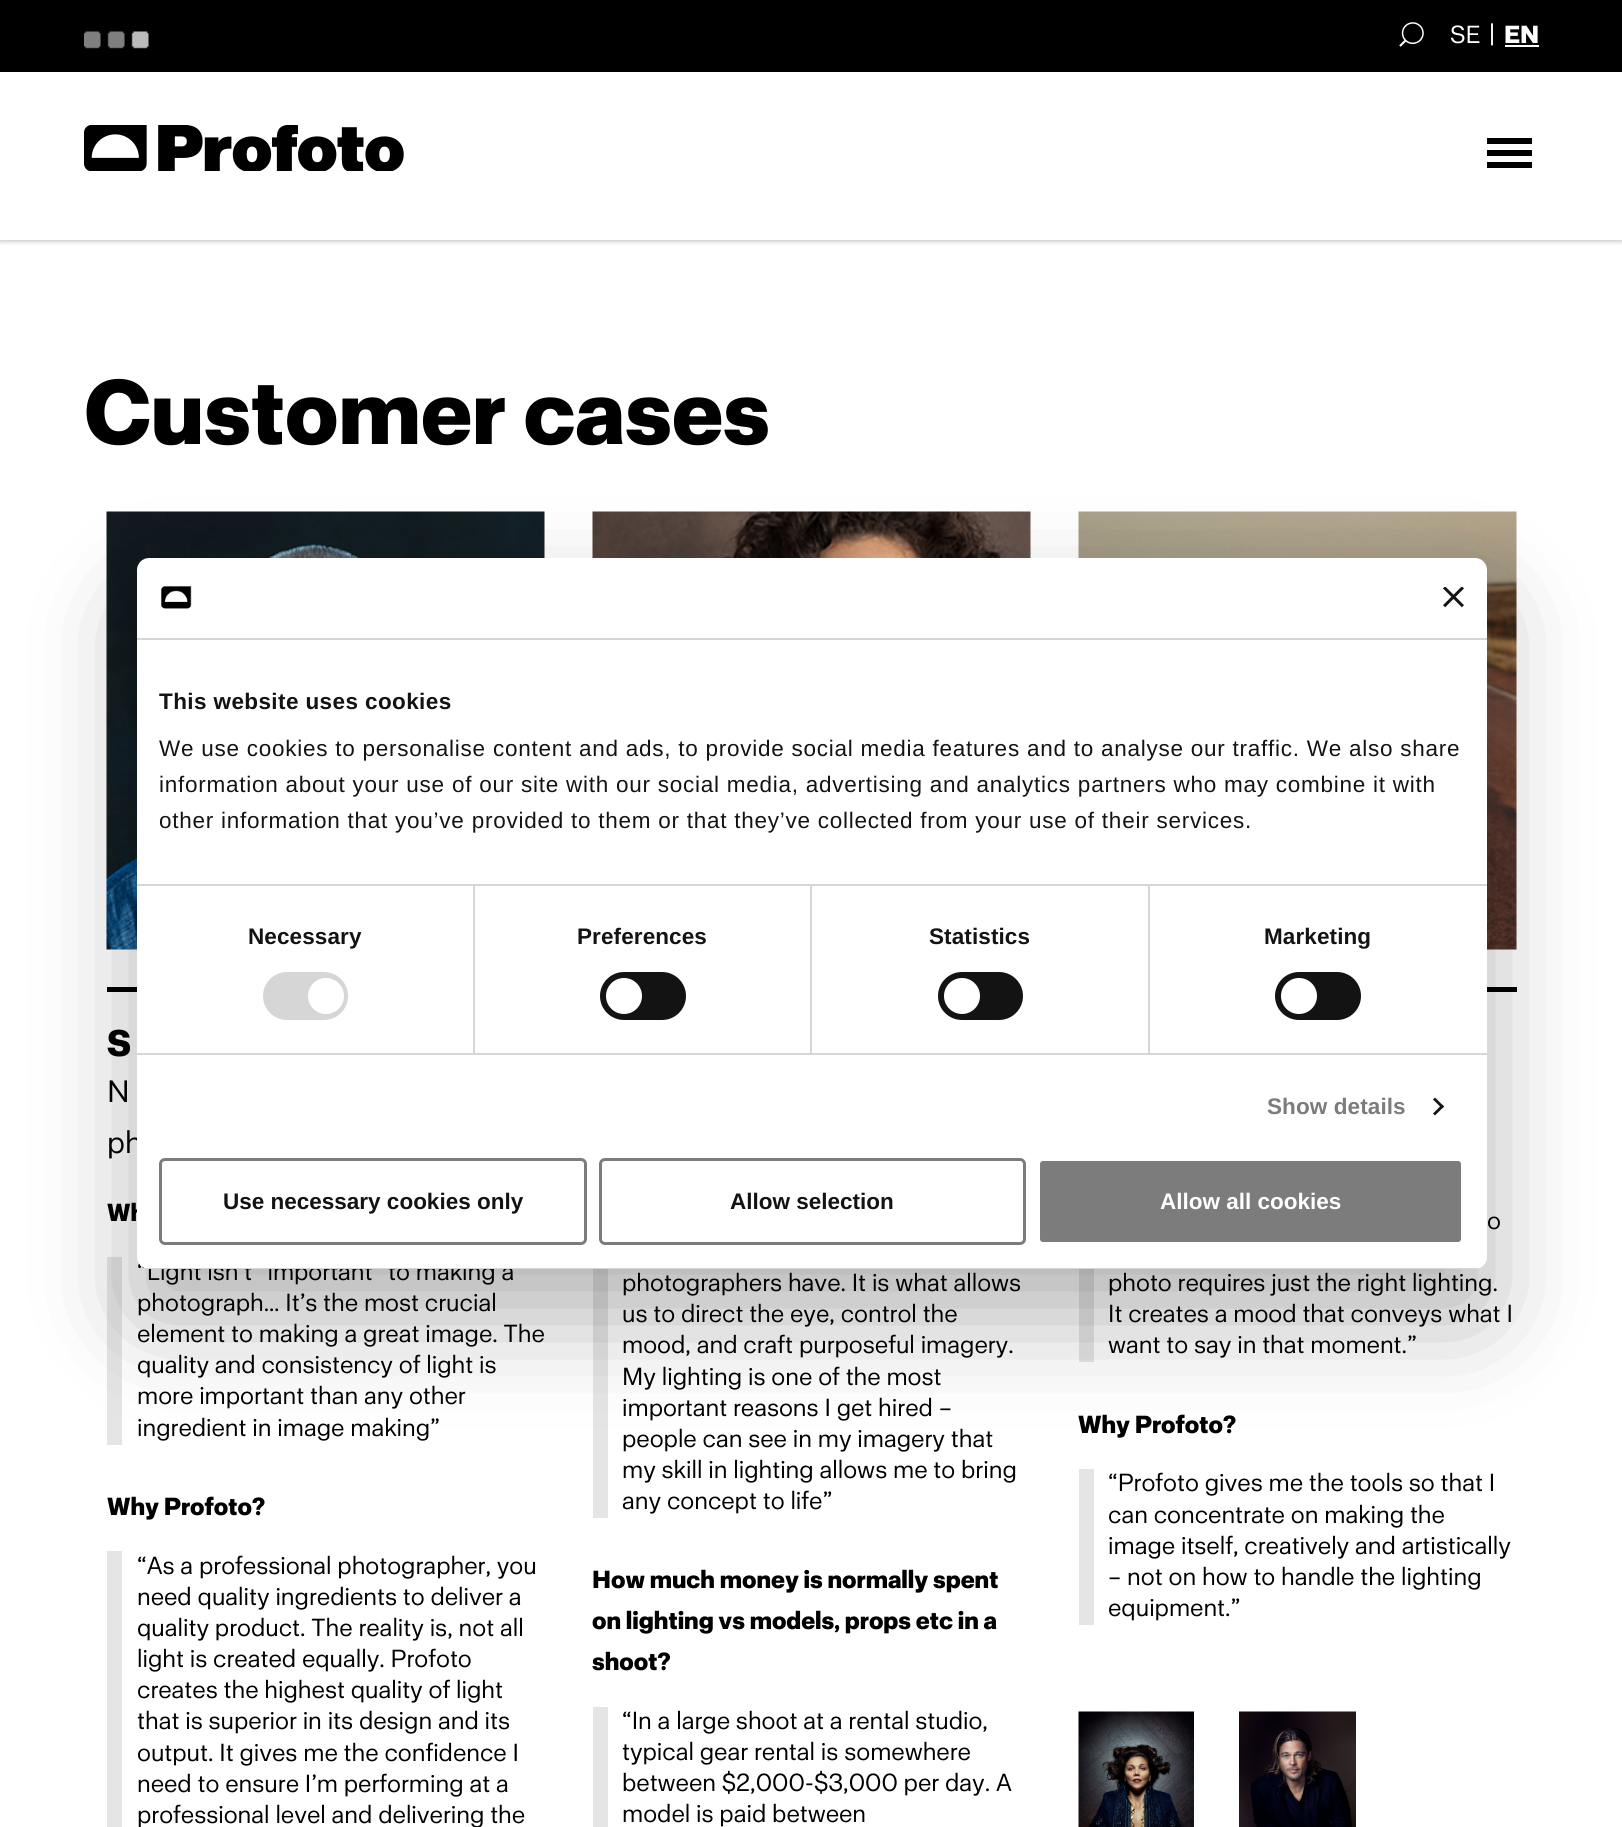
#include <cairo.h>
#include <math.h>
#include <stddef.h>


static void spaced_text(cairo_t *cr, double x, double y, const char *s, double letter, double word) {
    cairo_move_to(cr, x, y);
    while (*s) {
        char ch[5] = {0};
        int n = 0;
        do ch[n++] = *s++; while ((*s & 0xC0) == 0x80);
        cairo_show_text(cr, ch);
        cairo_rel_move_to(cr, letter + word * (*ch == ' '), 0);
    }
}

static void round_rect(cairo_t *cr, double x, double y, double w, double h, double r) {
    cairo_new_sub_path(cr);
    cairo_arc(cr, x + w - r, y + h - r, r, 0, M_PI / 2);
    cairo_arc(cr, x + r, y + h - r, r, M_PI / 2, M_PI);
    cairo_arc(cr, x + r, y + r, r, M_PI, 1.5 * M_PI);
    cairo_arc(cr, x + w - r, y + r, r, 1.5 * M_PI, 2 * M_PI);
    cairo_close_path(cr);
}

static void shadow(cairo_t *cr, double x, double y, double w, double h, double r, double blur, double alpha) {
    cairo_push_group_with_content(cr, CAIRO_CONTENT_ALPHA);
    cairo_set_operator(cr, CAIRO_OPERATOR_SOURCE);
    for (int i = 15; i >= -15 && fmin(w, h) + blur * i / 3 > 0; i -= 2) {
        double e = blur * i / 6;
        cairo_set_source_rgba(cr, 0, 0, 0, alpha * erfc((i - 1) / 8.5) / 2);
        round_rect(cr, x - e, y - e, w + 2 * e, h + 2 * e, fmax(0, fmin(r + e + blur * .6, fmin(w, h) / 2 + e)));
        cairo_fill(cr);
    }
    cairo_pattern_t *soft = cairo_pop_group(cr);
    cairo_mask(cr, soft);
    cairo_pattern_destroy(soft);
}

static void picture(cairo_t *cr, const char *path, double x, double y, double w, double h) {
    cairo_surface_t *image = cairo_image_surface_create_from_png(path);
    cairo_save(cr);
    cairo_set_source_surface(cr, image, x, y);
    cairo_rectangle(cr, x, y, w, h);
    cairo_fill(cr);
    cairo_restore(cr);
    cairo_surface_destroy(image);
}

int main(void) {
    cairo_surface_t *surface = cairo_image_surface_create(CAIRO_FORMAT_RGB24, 1622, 1827);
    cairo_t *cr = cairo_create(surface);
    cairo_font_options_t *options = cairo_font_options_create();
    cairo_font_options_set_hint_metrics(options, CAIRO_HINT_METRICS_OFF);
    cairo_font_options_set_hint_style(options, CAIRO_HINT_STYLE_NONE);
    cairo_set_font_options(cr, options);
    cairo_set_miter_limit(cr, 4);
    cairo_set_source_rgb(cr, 1, 1, 1);
    cairo_paint(cr);
    cairo_save(cr);
    cairo_rectangle(cr, 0, 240, 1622, 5);
    cairo_clip(cr);
    cairo_set_source_rgb(cr, 0, 0, 0);
    shadow(cr, 0, -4, 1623, 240, 0, 4.5, 1);
    cairo_restore(cr);
    cairo_set_source_rgb(cr, 0, 0, 0);
    cairo_rectangle(cr, 0, 0, 1622, 72);
    cairo_fill(cr);
    picture(cr, "img1.png", 84, 31, 65, 18);
    picture(cr, "img2.png", 1399, 22, 25, 25);
    cairo_select_font_face(cr, "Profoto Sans", CAIRO_FONT_SLANT_NORMAL, CAIRO_FONT_WEIGHT_NORMAL);
    cairo_set_font_size(cr, 24);
    cairo_set_source_rgb(cr, 1, 1, 1);
    cairo_move_to(cr, 1450, 43);
    cairo_show_text(cr, "SE");
    cairo_move_to(cr, 1489, 43);
    cairo_show_text(cr, "|");
    cairo_select_font_face(cr, "Profoto Sans", CAIRO_FONT_SLANT_NORMAL, CAIRO_FONT_WEIGHT_BOLD);
    cairo_move_to(cr, 1504, 43);
    cairo_show_text(cr, "EN");
    cairo_rectangle(cr, 1505, 45, 34, 2);
    cairo_fill(cr);
    picture(cr, "img3.png", 84, 125, 320, 46);
    cairo_set_source_rgb(cr, 0, 0, 0);
    cairo_rectangle(cr, 1487, 150, 45, 6);
    cairo_fill(cr);
    cairo_rectangle(cr, 1487, 138, 45, 6);
    cairo_fill(cr);
    cairo_rectangle(cr, 1487, 162, 45, 6);
    cairo_fill(cr);
    cairo_set_font_size(cr, 88.75);
    cairo_move_to(cr, 84, 444);
    cairo_show_text(cr, "Customer cases");
    cairo_rectangle(cr, 107, 987, 30, 5);
    cairo_fill(cr);
    picture(cr, "img4.png", 106, 511, 439, 439);
    cairo_set_font_size(cr, 36);
    cairo_move_to(cr, 107, 1056);
    cairo_show_text(cr, "S");
    cairo_select_font_face(cr, "Profoto Sans", CAIRO_FONT_SLANT_NORMAL, CAIRO_FONT_WEIGHT_NORMAL);
    cairo_set_font_size(cr, 30);
    cairo_move_to(cr, 107, 1102);
    cairo_show_text(cr, "N");
    cairo_move_to(cr, 107, 1153);
    cairo_show_text(cr, "ph");
    cairo_select_font_face(cr, "Profoto Sans", CAIRO_FONT_SLANT_NORMAL, CAIRO_FONT_WEIGHT_BOLD);
    cairo_set_font_size(cr, 24);
    cairo_move_to(cr, 107, 1221);
    cairo_show_text(cr, "Wh");
    cairo_set_source_rgb(cr, 0.898, 0.898, 0.898);
    cairo_rectangle(cr, 107, 1257, 15, 188);
    cairo_fill(cr);
    cairo_select_font_face(cr, "Profoto Sans", CAIRO_FONT_SLANT_NORMAL, CAIRO_FONT_WEIGHT_NORMAL);
    cairo_set_source_rgb(cr, 0, 0, 0);
    cairo_move_to(cr, 137, 1280);
    cairo_show_text(cr, "“Light isn’t “important” to making a");
    cairo_move_to(cr, 137, 1311);
    cairo_show_text(cr, "photograph… It’s the most crucial");
    cairo_move_to(cr, 137, 1342);
    cairo_show_text(cr, "element to making a great image. The");
    cairo_move_to(cr, 137, 1373);
    cairo_show_text(cr, "quality and consistency of light is");
    cairo_move_to(cr, 137, 1404);
    cairo_show_text(cr, "more important than any other");
    cairo_move_to(cr, 137, 1436);
    cairo_show_text(cr, "ingredient in image making”");
    cairo_select_font_face(cr, "Profoto Sans", CAIRO_FONT_SLANT_NORMAL, CAIRO_FONT_WEIGHT_BOLD);
    cairo_move_to(cr, 107, 1515);
    cairo_show_text(cr, "Why Profoto?");
    cairo_set_source_rgb(cr, 0.898, 0.898, 0.898);
    cairo_rectangle(cr, 107, 1551, 15, 276);
    cairo_fill(cr);
    cairo_select_font_face(cr, "Profoto Sans", CAIRO_FONT_SLANT_NORMAL, CAIRO_FONT_WEIGHT_NORMAL);
    cairo_set_source_rgb(cr, 0, 0, 0);
    cairo_move_to(cr, 137, 1574);
    cairo_show_text(cr, "“As a professional photographer, you");
    cairo_move_to(cr, 137, 1605);
    cairo_show_text(cr, "need quality ingredients to deliver a");
    cairo_move_to(cr, 137, 1636);
    cairo_show_text(cr, "quality product. The reality is, not all");
    cairo_move_to(cr, 137, 1667);
    cairo_show_text(cr, "light is created equally. Profoto");
    cairo_move_to(cr, 137, 1698);
    cairo_show_text(cr, "creates the highest quality of light");
    cairo_move_to(cr, 137, 1729);
    cairo_show_text(cr, "that is superior in its design and its");
    cairo_move_to(cr, 137, 1761);
    cairo_show_text(cr, "output. It gives me the confidence I");
    cairo_move_to(cr, 137, 1792);
    cairo_show_text(cr, "need to ensure I’m performing at a");
    cairo_move_to(cr, 137, 1823);
    cairo_show_text(cr, "professional level and delivering the");
    picture(cr, "img5.png", 592, 511, 439, 47);
    cairo_set_source_rgb(cr, 0.898, 0.898, 0.898);
    cairo_rectangle(cr, 593, 1269, 15, 249);
    cairo_fill(cr);
    cairo_set_source_rgb(cr, 0, 0, 0);
    cairo_move_to(cr, 622, 1291);
    cairo_show_text(cr, "photographers have. It is what allows");
    cairo_move_to(cr, 622, 1322);
    cairo_show_text(cr, "us to direct the eye, control the");
    cairo_move_to(cr, 622, 1353);
    cairo_show_text(cr, "mood, and craft purposeful imagery.");
    cairo_move_to(cr, 622, 1385);
    cairo_show_text(cr, "My lighting is one of the most");
    cairo_move_to(cr, 622, 1416);
    cairo_show_text(cr, "important reasons I get hired –");
    cairo_move_to(cr, 622, 1447);
    cairo_show_text(cr, "people can see in my imagery that");
    cairo_move_to(cr, 622, 1478);
    cairo_show_text(cr, "my skill in lighting allows me to bring");
    cairo_move_to(cr, 622, 1509);
    cairo_show_text(cr, "any concept to life”");
    cairo_select_font_face(cr, "Profoto Sans", CAIRO_FONT_SLANT_NORMAL, CAIRO_FONT_WEIGHT_BOLD);
    cairo_move_to(cr, 592, 1588);
    cairo_show_text(cr, "How much money is normally spent");
    cairo_move_to(cr, 592, 1629);
    cairo_show_text(cr, "on lighting vs models, props etc in a");
    cairo_move_to(cr, 592, 1670);
    cairo_show_text(cr, "shoot?");
    cairo_set_source_rgb(cr, 0.898, 0.898, 0.898);
    cairo_rectangle(cr, 593, 1707, 15, 120);
    cairo_fill(cr);
    cairo_select_font_face(cr, "Profoto Sans", CAIRO_FONT_SLANT_NORMAL, CAIRO_FONT_WEIGHT_NORMAL);
    cairo_set_source_rgb(cr, 0, 0, 0);
    cairo_move_to(cr, 622, 1729);
    cairo_show_text(cr, "“In a large shoot at a rental studio,");
    cairo_move_to(cr, 622, 1760);
    cairo_show_text(cr, "typical gear rental is somewhere");
    cairo_move_to(cr, 622, 1791);
    cairo_show_text(cr, "between $2,000-$3,000 per day. A");
    cairo_move_to(cr, 622, 1822);
    cairo_show_text(cr, "model is paid between");
    cairo_rectangle(cr, 1487, 987, 30, 5);
    cairo_fill(cr);
    picture(cr, "img6.png", 1078, 511, 439, 439);
    cairo_set_source_rgb(cr, 0.898, 0.898, 0.898);
    cairo_rectangle(cr, 1079, 1269, 15, 93);
    cairo_fill(cr);
    cairo_set_source_rgb(cr, 0, 0, 0);
    cairo_move_to(cr, 1487, 1229);
    cairo_show_text(cr, "o");
    cairo_move_to(cr, 1108, 1291);
    cairo_show_text(cr, "photo requires just the right lighting.");
    cairo_move_to(cr, 1108, 1322);
    cairo_show_text(cr, "It creates a mood that conveys what I");
    cairo_move_to(cr, 1108, 1353);
    cairo_show_text(cr, "want to say in that moment.”");
    cairo_select_font_face(cr, "Profoto Sans", CAIRO_FONT_SLANT_NORMAL, CAIRO_FONT_WEIGHT_BOLD);
    cairo_move_to(cr, 1078, 1433);
    cairo_show_text(cr, "Why Profoto?");
    cairo_set_source_rgb(cr, 0.898, 0.898, 0.898);
    cairo_rectangle(cr, 1079, 1469, 15, 156);
    cairo_fill(cr);
    cairo_select_font_face(cr, "Profoto Sans", CAIRO_FONT_SLANT_NORMAL, CAIRO_FONT_WEIGHT_NORMAL);
    cairo_set_source_rgb(cr, 0, 0, 0);
    cairo_move_to(cr, 1108, 1491);
    cairo_show_text(cr, "“Profoto gives me the tools so that I");
    cairo_move_to(cr, 1108, 1523);
    cairo_show_text(cr, "can concentrate on making the");
    cairo_move_to(cr, 1108, 1554);
    cairo_show_text(cr, "image itself, creatively and artistically");
    cairo_move_to(cr, 1108, 1585);
    cairo_show_text(cr, "– not on how to handle the lighting");
    cairo_move_to(cr, 1108, 1616);
    cairo_show_text(cr, "equipment.”");
    picture(cr, "img7.png", 1078, 1711, 116, 116);
    picture(cr, "img8.png", 1239, 1711, 117, 116);
    cairo_set_source_rgb(cr, 0, 0, 0);
    shadow(cr, 137, 606, 1350, 711, 12, 51, 0.3);
    cairo_set_source_rgb(cr, 1, 1, 1);
    round_rect(cr, 137, 558, 1350, 711, 12);
    cairo_fill(cr);
    cairo_set_source_rgb(cr, 0.839, 0.839, 0.839);
    cairo_rectangle(cr, 137, 638, 1350, 2);
    cairo_fill(cr);
    picture(cr, "img9.png", 161, 586, 31, 23);
    picture(cr, "img10.png", 1443, 587, 21, 21);
    cairo_rectangle(cr, 473, 885, 2, 168);
    cairo_fill(cr);
    cairo_rectangle(cr, 810, 885, 2, 168);
    cairo_fill(cr);
    cairo_rectangle(cr, 1148, 885, 2, 168);
    cairo_fill(cr);
    cairo_rectangle(cr, 137, 884, 1350, 2);
    cairo_fill(cr);
    cairo_select_font_face(cr, "Liberation Sans", CAIRO_FONT_SLANT_NORMAL, CAIRO_FONT_WEIGHT_BOLD);
    cairo_set_font_size(cr, 22.5);
    cairo_set_source_rgb(cr, 0.078, 0.078, 0.078);
    spaced_text(cr, 159, 709, "This website uses cookies", 0.4, 0);
    cairo_select_font_face(cr, "Liberation Sans", CAIRO_FONT_SLANT_NORMAL, CAIRO_FONT_WEIGHT_NORMAL);
    spaced_text(cr, 159, 756, "We use cookies to personalise content and ads, to provide social media features and to analyse our traffic. We also share", 0.75, 0);
    spaced_text(cr, 159, 792, "information about your use of our site with our social media, advertising and analytics partners who may combine it with", 0.75, 0);
    spaced_text(cr, 159, 828, "other information that you’ve provided to them or that they’ve collected from your use of their services.", 0.75, 0);
    cairo_set_source_rgb(cr, 0.839, 0.839, 0.839);
    cairo_rectangle(cr, 137, 1053, 1350, 2);
    cairo_fill(cr);
    cairo_select_font_face(cr, "Liberation Sans", CAIRO_FONT_SLANT_NORMAL, CAIRO_FONT_WEIGHT_BOLD);
    cairo_set_source_rgb(cr, 0.078, 0.078, 0.078);
    spaced_text(cr, 248, 944, "Necessary", 0.1, 0);
    cairo_set_source_rgb(cr, 0.839, 0.839, 0.839);
    round_rect(cr, 263, 972, 85, 48, 24);
    cairo_fill(cr);
    cairo_set_source_rgb(cr, 1, 1, 1);
    cairo_arc(cr, 326, 996, 18, 0, 2 * M_PI);
    cairo_fill(cr);
    cairo_set_source_rgb(cr, 0.078, 0.078, 0.078);
    spaced_text(cr, 577, 944, "Preferences", 0.1, 0);
    round_rect(cr, 600, 972, 86, 48, 24);
    cairo_fill(cr);
    cairo_set_source_rgb(cr, 1, 1, 1);
    cairo_arc(cr, 624, 996, 18, 0, 2 * M_PI);
    cairo_fill(cr);
    cairo_set_source_rgb(cr, 0.078, 0.078, 0.078);
    spaced_text(cr, 929, 944, "Statistics", 0.1, 0);
    round_rect(cr, 938, 972, 85, 48, 24);
    cairo_fill(cr);
    cairo_set_source_rgb(cr, 1, 1, 1);
    cairo_arc(cr, 962, 996, 18, 0, 2 * M_PI);
    cairo_fill(cr);
    cairo_set_source_rgb(cr, 0.078, 0.078, 0.078);
    spaced_text(cr, 1264, 944, "Marketing", 0.1, 0);
    round_rect(cr, 1275, 972, 86, 48, 24);
    cairo_fill(cr);
    cairo_set_source_rgb(cr, 1, 1, 1);
    cairo_arc(cr, 1299, 996, 18, 0, 2 * M_PI);
    cairo_fill(cr);
    cairo_set_source_rgb(cr, 0.486, 0.486, 0.486);
    spaced_text(cr, 1267, 1114, "Show details", 0.1, 0);
    cairo_set_source_rgb(cr, 0.078, 0.078, 0.078);
    cairo_new_path(cr);
    cairo_move_to(cr, 1435, 1097.5);
    cairo_line_to(cr, 1444, 1106.5);
    cairo_line_to(cr, 1442, 1108.5);
    cairo_line_to(cr, 1433, 1099.5);
    cairo_close_path(cr);
    cairo_fill(cr);
    cairo_new_path(cr);
    cairo_move_to(cr, 1442, 1104.5);
    cairo_line_to(cr, 1444, 1106.5);
    cairo_line_to(cr, 1435, 1115.5);
    cairo_line_to(cr, 1433, 1113.5);
    cairo_close_path(cr);
    cairo_fill(cr);
    cairo_save(cr);
    round_rect(cr, 137, 558, 1350, 711, 12);
    cairo_clip(cr);
    cairo_set_source_rgb(cr, 0.839, 0.839, 0.839);
    cairo_rectangle(cr, 137, 1268, 1350, 1);
    cairo_fill(cr);
    cairo_restore(cr);
    round_rect(cr, 160.5, 1159.5, 425, 84, 4.5);
    cairo_set_source_rgb(cr, 0.486, 0.486, 0.486);
    cairo_set_line_width(cr, 3);
    cairo_stroke(cr);
    cairo_set_source_rgb(cr, 0.078, 0.078, 0.078);
    cairo_move_to(cr, 223, 1209);
    cairo_show_text(cr, "Use necessary cookies only");
    round_rect(cr, 600.5, 1159.5, 424, 84, 4.5);
    cairo_set_source_rgb(cr, 0.486, 0.486, 0.486);
    cairo_stroke(cr);
    cairo_set_source_rgb(cr, 0.078, 0.078, 0.078);
    cairo_move_to(cr, 730, 1209);
    cairo_show_text(cr, "Allow selection");
    cairo_set_source_rgb(cr, 0.486, 0.486, 0.486);
    round_rect(cr, 1038.5, 1159.5, 424, 84, 4.5);
    cairo_fill_preserve(cr);
    cairo_set_source_rgb(cr, 1, 1, 1);
    cairo_stroke(cr);
    cairo_move_to(cr, 1160, 1209);
    cairo_show_text(cr, "Allow all cookies");
    cairo_surface_write_to_png(surface, "page.png");
    cairo_font_options_destroy(options);
    cairo_destroy(cr);
    cairo_surface_destroy(surface);
    return 0;
}
